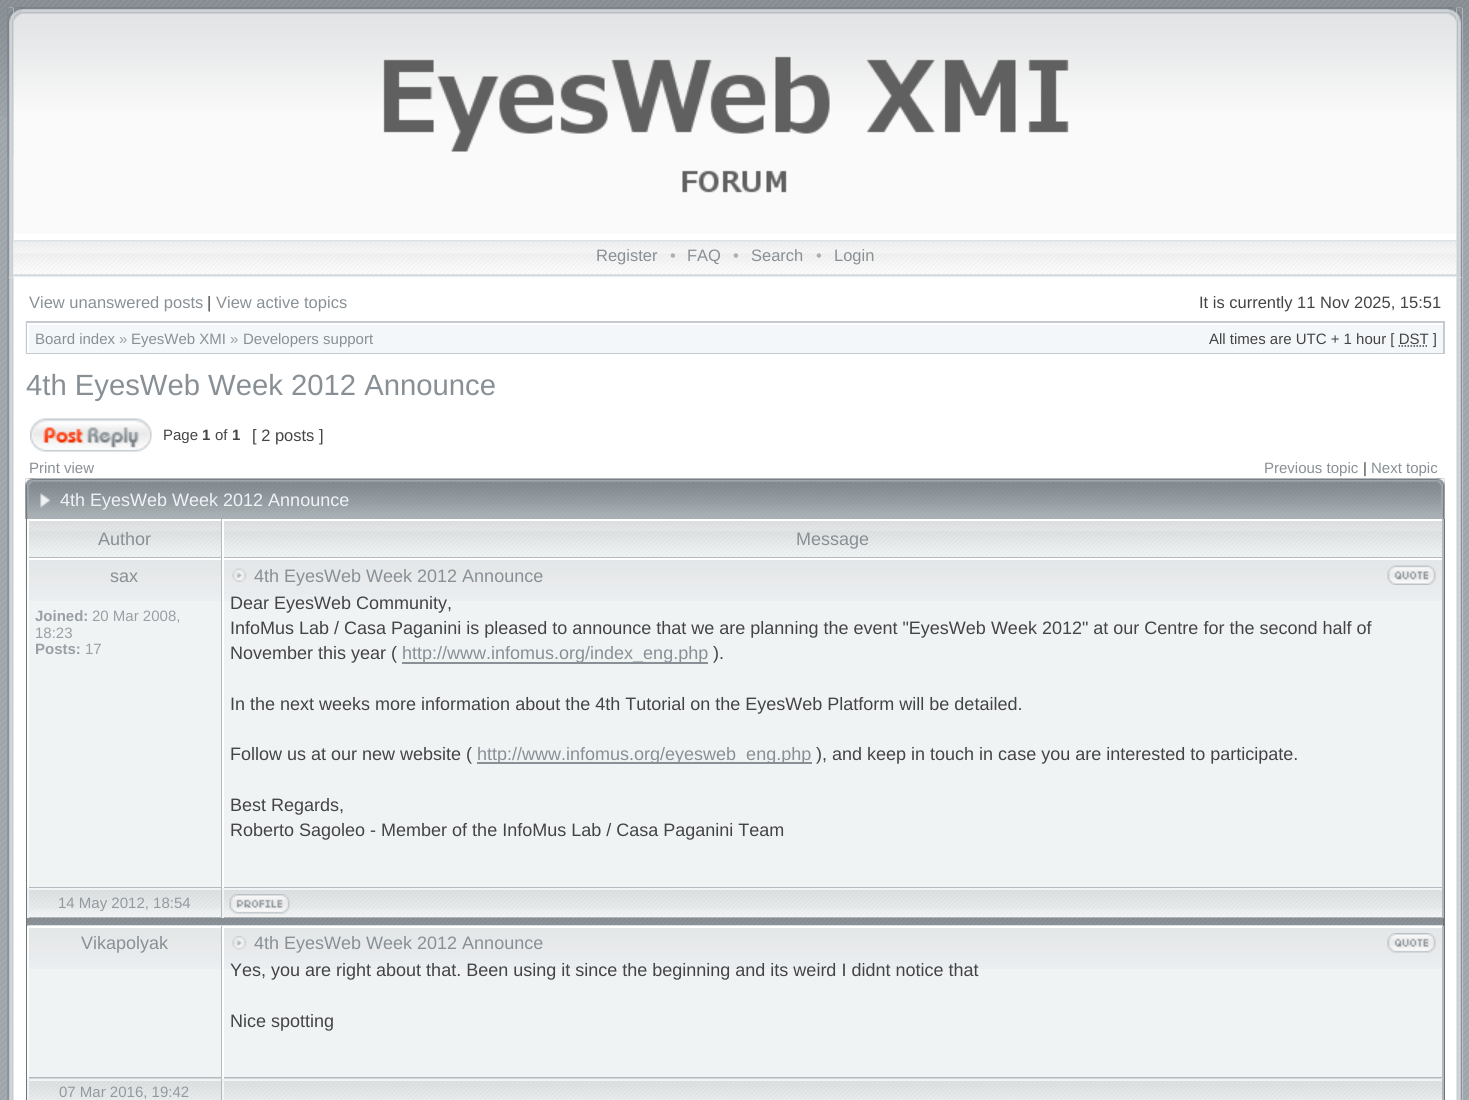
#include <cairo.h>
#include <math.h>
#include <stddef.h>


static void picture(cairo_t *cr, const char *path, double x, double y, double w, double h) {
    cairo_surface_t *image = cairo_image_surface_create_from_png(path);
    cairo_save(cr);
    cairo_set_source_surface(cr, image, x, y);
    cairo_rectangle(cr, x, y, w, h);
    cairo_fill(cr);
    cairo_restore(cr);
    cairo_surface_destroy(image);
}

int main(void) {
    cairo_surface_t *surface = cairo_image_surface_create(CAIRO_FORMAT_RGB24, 1469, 1100);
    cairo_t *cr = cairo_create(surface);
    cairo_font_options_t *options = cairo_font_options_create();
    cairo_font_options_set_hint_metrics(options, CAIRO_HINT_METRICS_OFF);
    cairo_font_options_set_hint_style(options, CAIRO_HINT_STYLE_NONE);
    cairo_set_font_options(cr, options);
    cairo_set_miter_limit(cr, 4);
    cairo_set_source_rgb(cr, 1, 1, 1);
    cairo_paint(cr);
    picture(cr, "img1.png", 0, 117, 1469, 983);
    picture(cr, "img2.png", 0, 0, 1469, 117);
    cairo_set_source_rgb(cr, 1, 1, 1);
    cairo_rectangle(cr, 8, 8, 1455, 1092);
    cairo_fill(cr);
    picture(cr, "img5.png", 13, 7, 1444, 227);
    picture(cr, "img6.png", 13, 7, 10, 15);
    picture(cr, "img3.png", 7, 7, 7, 271);
    picture(cr, "img4.png", 7, 7, 7, 150);
    picture(cr, "img7.png", 1447, 7, 10, 16);
    picture(cr, "img8.png", 383, 56, 686, 137);
    picture(cr, "img9.png", 13, 240, 1444, 38);
    cairo_select_font_face(cr, "Liberation Sans", CAIRO_FONT_SLANT_NORMAL, CAIRO_FONT_WEIGHT_NORMAL);
    cairo_set_font_size(cr, 16.5);
    cairo_set_source_rgb(cr, 0.533, 0.565, 0.584);
    cairo_move_to(cr, 596, 261);
    cairo_show_text(cr, "Register");
    cairo_set_source_rgb(cr, 0.659, 0.686, 0.702);
    cairo_move_to(cr, 670, 261);
    cairo_show_text(cr, "•");
    cairo_set_source_rgb(cr, 0.533, 0.565, 0.584);
    cairo_move_to(cr, 687, 261);
    cairo_show_text(cr, "FAQ");
    cairo_set_source_rgb(cr, 0.659, 0.686, 0.702);
    cairo_move_to(cr, 733, 261);
    cairo_show_text(cr, "•");
    cairo_set_source_rgb(cr, 0.533, 0.565, 0.584);
    cairo_move_to(cr, 751, 261);
    cairo_show_text(cr, "Search");
    cairo_set_source_rgb(cr, 0.659, 0.686, 0.702);
    cairo_move_to(cr, 816, 261);
    cairo_show_text(cr, "•");
    cairo_set_source_rgb(cr, 0.533, 0.565, 0.584);
    cairo_move_to(cr, 834, 261);
    cairo_show_text(cr, "Login");
    picture(cr, "img10.png", 1456, 7, 7, 271);
    picture(cr, "img11.png", 1456, 7, 7, 151);
    picture(cr, "img12.png", 7, 277, 7, 823);
    cairo_move_to(cr, 29, 308);
    cairo_show_text(cr, "View unanswered posts");
    cairo_set_source_rgb(cr, 0.267, 0.267, 0.267);
    cairo_move_to(cr, 207, 308);
    cairo_show_text(cr, "|");
    cairo_set_source_rgb(cr, 0.533, 0.565, 0.584);
    cairo_move_to(cr, 216, 308);
    cairo_show_text(cr, "View active topics");
    cairo_set_source_rgb(cr, 0.267, 0.267, 0.267);
    cairo_move_to(cr, 1199, 308);
    cairo_show_text(cr, "It is currently 11 Nov 2025, 15:51");
    picture(cr, "img13.png", 25, 322, 1, 32);
    cairo_rectangle(cr, 27, 322, 1417, 31);
    cairo_set_source_rgb(cr, 0.776, 0.792, 0.812);
    cairo_stroke(cr);
    cairo_set_source_rgb(cr, 0.957, 0.965, 0.973);
    cairo_rectangle(cr, 29, 325, 1414, 28);
    cairo_fill(cr);
    cairo_set_source_rgb(cr, 1, 1, 1);
    cairo_rectangle(cr, 27, 323, 1, 2);
    cairo_fill(cr);
    cairo_rectangle(cr, 27, 323, 2, 30);
    cairo_fill(cr);
    cairo_set_font_size(cr, 15);
    cairo_set_source_rgb(cr, 0.533, 0.565, 0.584);
    cairo_move_to(cr, 35, 344);
    cairo_show_text(cr, "Board index");
    cairo_set_source_rgb(cr, 0.6, 0.627, 0.647);
    cairo_move_to(cr, 119, 344);
    cairo_show_text(cr, "»");
    cairo_set_source_rgb(cr, 0.533, 0.565, 0.584);
    cairo_move_to(cr, 131, 344);
    cairo_show_text(cr, "EyesWeb XMI");
    cairo_set_source_rgb(cr, 0.6, 0.627, 0.647);
    cairo_move_to(cr, 230, 344);
    cairo_show_text(cr, "»");
    cairo_set_source_rgb(cr, 0.533, 0.565, 0.584);
    cairo_move_to(cr, 243, 344);
    cairo_show_text(cr, "Developers support");
    cairo_set_source_rgb(cr, 0.267, 0.267, 0.267);
    cairo_move_to(cr, 1209, 344);
    cairo_show_text(cr, "All times are UTC + 1 hour [ DST ]");
    cairo_new_path(cr);
    cairo_move_to(cr, 1398.5, 346);
    cairo_line_to(cr, 1428.5, 346);
    cairo_set_line_width(cr, 1.5);
    cairo_set_dash(cr, (double[]){1.5, 1.5}, 2, 0);
    cairo_stroke(cr);
    cairo_set_font_size(cr, 29.25);
    cairo_set_source_rgb(cr, 0.533, 0.565, 0.584);
    cairo_move_to(cr, 26, 395);
    cairo_show_text(cr, "4th EyesWeb Week 2012 Announce");
    picture(cr, "img14.png", 30, 418, 122, 34);
    cairo_set_font_size(cr, 15);
    cairo_set_source_rgb(cr, 0.267, 0.267, 0.267);
    cairo_move_to(cr, 163, 440);
    cairo_show_text(cr, "Page");
    cairo_select_font_face(cr, "Liberation Sans", CAIRO_FONT_SLANT_NORMAL, CAIRO_FONT_WEIGHT_BOLD);
    cairo_move_to(cr, 202, 440);
    cairo_show_text(cr, "1");
    cairo_select_font_face(cr, "Liberation Sans", CAIRO_FONT_SLANT_NORMAL, CAIRO_FONT_WEIGHT_NORMAL);
    cairo_move_to(cr, 215, 440);
    cairo_show_text(cr, "of");
    cairo_select_font_face(cr, "Liberation Sans", CAIRO_FONT_SLANT_NORMAL, CAIRO_FONT_WEIGHT_BOLD);
    cairo_move_to(cr, 232, 440);
    cairo_show_text(cr, "1");
    cairo_select_font_face(cr, "Liberation Sans", CAIRO_FONT_SLANT_NORMAL, CAIRO_FONT_WEIGHT_NORMAL);
    cairo_set_font_size(cr, 16.5);
    cairo_move_to(cr, 252, 441);
    cairo_show_text(cr, "[ 2 posts ]");
    cairo_set_font_size(cr, 15);
    cairo_set_source_rgb(cr, 0.533, 0.565, 0.584);
    cairo_move_to(cr, 29, 473);
    cairo_show_text(cr, "Print view");
    cairo_move_to(cr, 1264, 473);
    cairo_show_text(cr, "Previous topic");
    cairo_set_source_rgb(cr, 0.267, 0.267, 0.267);
    cairo_move_to(cr, 1363, 473);
    cairo_show_text(cr, "|");
    cairo_set_source_rgb(cr, 0.533, 0.565, 0.584);
    cairo_move_to(cr, 1371, 473);
    cairo_show_text(cr, "Next topic");
    picture(cr, "img15.png", 25, 478, 1420, 41);
    picture(cr, "img16.png", 25, 478, 26, 41);
    picture(cr, "img17.png", 1437, 478, 8, 41);
    cairo_set_font_size(cr, 18);
    cairo_set_source_rgb(cr, 0.937, 0.953, 0.965);
    cairo_move_to(cr, 60, 506);
    cairo_show_text(cr, "4th EyesWeb Week 2012 Announce");
    picture(cr, "img18.png", 25, 519, 1, 71);
    cairo_set_source_rgb(cr, 0.431, 0.455, 0.478);
    cairo_rectangle(cr, 1443, 519, 2, 581);
    cairo_fill(cr);
    cairo_rectangle(cr, 26, 519, 2, 581);
    cairo_fill(cr);
    picture(cr, "img19.png", 29, 521, 192, 36);
    cairo_set_source_rgb(cr, 1, 1, 1);
    cairo_rectangle(cr, 27, 519, 1, 2);
    cairo_fill(cr);
    cairo_set_source_rgb(cr, 0.706, 0.725, 0.749);
    cairo_rectangle(cr, 221, 519, 1, 369);
    cairo_fill(cr);
    cairo_rectangle(cr, 27, 557, 195, 1);
    cairo_fill(cr);
    cairo_set_source_rgb(cr, 1, 1, 1);
    cairo_rectangle(cr, 27, 519, 2, 39);
    cairo_fill(cr);
    cairo_set_source_rgb(cr, 0.533, 0.565, 0.584);
    cairo_move_to(cr, 98, 545);
    cairo_show_text(cr, "Author");
    picture(cr, "img20.png", 224, 521, 1218, 36);
    cairo_set_source_rgb(cr, 0.706, 0.725, 0.749);
    cairo_rectangle(cr, 1442, 519, 2, 369);
    cairo_fill(cr);
    cairo_rectangle(cr, 222, 557, 1221, 1);
    cairo_fill(cr);
    cairo_set_source_rgb(cr, 1, 1, 1);
    cairo_rectangle(cr, 222, 557, 2, 1);
    cairo_fill(cr);
    cairo_set_source_rgb(cr, 0.533, 0.565, 0.584);
    cairo_move_to(cr, 796, 545);
    cairo_show_text(cr, "Message");
    cairo_set_source_rgb(cr, 0.941, 0.953, 0.957);
    cairo_rectangle(cr, 29, 601, 192, 286);
    cairo_fill(cr);
    picture(cr, "img21.png", 29, 560, 192, 41);
    cairo_set_source_rgb(cr, 1, 1, 1);
    cairo_rectangle(cr, 27, 558, 1, 2);
    cairo_fill(cr);
    cairo_set_source_rgb(cr, 0.706, 0.725, 0.749);
    cairo_rectangle(cr, 27, 887, 1416, 1);
    cairo_fill(cr);
    cairo_set_source_rgb(cr, 1, 1, 1);
    cairo_rectangle(cr, 27, 558, 2, 330);
    cairo_fill(cr);
    cairo_set_source_rgb(cr, 0.533, 0.565, 0.584);
    cairo_move_to(cr, 110, 582);
    cairo_show_text(cr, "sax");
    cairo_select_font_face(cr, "Liberation Sans", CAIRO_FONT_SLANT_NORMAL, CAIRO_FONT_WEIGHT_BOLD);
    cairo_set_font_size(cr, 15);
    cairo_set_source_rgb(cr, 0.6, 0.627, 0.647);
    cairo_move_to(cr, 35, 621);
    cairo_show_text(cr, "Joined:");
    cairo_select_font_face(cr, "Liberation Sans", CAIRO_FONT_SLANT_NORMAL, CAIRO_FONT_WEIGHT_NORMAL);
    cairo_move_to(cr, 92, 621);
    cairo_show_text(cr, "20 Mar 2008,");
    cairo_move_to(cr, 35, 638);
    cairo_show_text(cr, "18:23");
    cairo_select_font_face(cr, "Liberation Sans", CAIRO_FONT_SLANT_NORMAL, CAIRO_FONT_WEIGHT_BOLD);
    cairo_move_to(cr, 35, 654);
    cairo_show_text(cr, "Posts:");
    cairo_select_font_face(cr, "Liberation Sans", CAIRO_FONT_SLANT_NORMAL, CAIRO_FONT_WEIGHT_NORMAL);
    cairo_move_to(cr, 85, 654);
    cairo_show_text(cr, "17");
    cairo_set_source_rgb(cr, 0.941, 0.953, 0.957);
    cairo_rectangle(cr, 224, 601, 1218, 286);
    cairo_fill(cr);
    picture(cr, "img22.png", 224, 560, 1218, 41);
    cairo_set_source_rgb(cr, 1, 1, 1);
    cairo_rectangle(cr, 222, 887, 2, 1);
    cairo_fill(cr);
    picture(cr, "img23.png", 232, 568, 15, 14);
    cairo_set_font_size(cr, 18);
    cairo_set_source_rgb(cr, 0.533, 0.565, 0.584);
    cairo_move_to(cr, 254, 582);
    cairo_show_text(cr, "4th EyesWeb Week 2012 Announce");
    picture(cr, "img24.png", 1387, 565, 49, 20);
    cairo_set_source_rgb(cr, 0.267, 0.267, 0.267);
    cairo_move_to(cr, 230, 609);
    cairo_show_text(cr, "Dear EyesWeb Community,");
    cairo_move_to(cr, 230, 634);
    cairo_show_text(cr, "InfoMus Lab / Casa Paganini is pleased to announce that we are planning the event \"EyesWeb Week 2012\" at our Centre for the second half of");
    cairo_move_to(cr, 230, 659);
    cairo_show_text(cr, "November this year (");
    cairo_set_source_rgb(cr, 0.533, 0.565, 0.584);
    cairo_rectangle(cr, 402, 662, 306, 2);
    cairo_fill(cr);
    cairo_move_to(cr, 402, 659);
    cairo_show_text(cr, "http://www.infomus.org/index_eng.php");
    cairo_set_source_rgb(cr, 0.267, 0.267, 0.267);
    cairo_move_to(cr, 713, 659);
    cairo_show_text(cr, ").");
    cairo_move_to(cr, 230, 710);
    cairo_show_text(cr, "In the next weeks more information about the 4th Tutorial on the EyesWeb Platform will be detailed.");
    cairo_move_to(cr, 230, 760);
    cairo_show_text(cr, "Follow us at our new website (");
    cairo_set_source_rgb(cr, 0.533, 0.565, 0.584);
    cairo_rectangle(cr, 477, 762, 335, 2);
    cairo_fill(cr);
    cairo_move_to(cr, 477, 760);
    cairo_show_text(cr, "http://www.infomus.org/eyesweb_eng.php");
    cairo_set_source_rgb(cr, 0.267, 0.267, 0.267);
    cairo_move_to(cr, 816, 760);
    cairo_show_text(cr, "), and keep in touch in case you are interested to participate.");
    cairo_move_to(cr, 230, 811);
    cairo_show_text(cr, "Best Regards,");
    cairo_move_to(cr, 230, 836);
    cairo_show_text(cr, "Roberto Sagoleo - Member of the InfoMus Lab / Casa Paganini Team");
    picture(cr, "img25.png", 29, 890, 192, 27);
    cairo_set_source_rgb(cr, 0.945, 0.957, 0.965);
    cairo_rectangle(cr, 27, 888, 1416, 2);
    cairo_fill(cr);
    cairo_set_source_rgb(cr, 0.694, 0.714, 0.729);
    cairo_rectangle(cr, 221, 888, 1, 30);
    cairo_fill(cr);
    cairo_rectangle(cr, 27, 917, 195, 1);
    cairo_fill(cr);
    cairo_set_source_rgb(cr, 0.945, 0.957, 0.965);
    cairo_rectangle(cr, 27, 888, 2, 30);
    cairo_fill(cr);
    cairo_set_font_size(cr, 15);
    cairo_set_source_rgb(cr, 0.573, 0.604, 0.624);
    cairo_move_to(cr, 58, 908);
    cairo_show_text(cr, "14 May 2012, 18:54");
    picture(cr, "img26.png", 224, 890, 1218, 27);
    cairo_set_source_rgb(cr, 0.694, 0.714, 0.729);
    cairo_rectangle(cr, 1442, 888, 2, 30);
    cairo_fill(cr);
    cairo_rectangle(cr, 222, 917, 1221, 1);
    cairo_fill(cr);
    cairo_set_source_rgb(cr, 0.945, 0.957, 0.965);
    cairo_rectangle(cr, 222, 888, 2, 30);
    cairo_fill(cr);
    picture(cr, "img27.png", 229, 894, 61, 20);
    picture(cr, "img28.png", 27, 918, 1416, 8);
    cairo_set_source_rgb(cr, 0.941, 0.953, 0.957);
    cairo_rectangle(cr, 29, 969, 192, 108);
    cairo_fill(cr);
    picture(cr, "img29.png", 27, 925, 195, 44);
    cairo_set_source_rgb(cr, 1, 1, 1);
    cairo_rectangle(cr, 27, 926, 195, 2);
    cairo_fill(cr);
    cairo_set_source_rgb(cr, 0.706, 0.725, 0.749);
    cairo_rectangle(cr, 221, 926, 1, 153);
    cairo_fill(cr);
    cairo_rectangle(cr, 27, 1077, 195, 2);
    cairo_fill(cr);
    cairo_set_source_rgb(cr, 1, 1, 1);
    cairo_rectangle(cr, 27, 926, 2, 153);
    cairo_fill(cr);
    cairo_set_font_size(cr, 18);
    cairo_set_source_rgb(cr, 0.533, 0.565, 0.584);
    cairo_move_to(cr, 81, 949);
    cairo_show_text(cr, "Vikapolyak");
    cairo_set_source_rgb(cr, 0.941, 0.953, 0.957);
    cairo_rectangle(cr, 224, 969, 1218, 108);
    cairo_fill(cr);
    picture(cr, "img30.png", 222, 925, 1221, 44);
    cairo_set_source_rgb(cr, 1, 1, 1);
    cairo_rectangle(cr, 222, 926, 1221, 2);
    cairo_fill(cr);
    cairo_set_source_rgb(cr, 0.706, 0.725, 0.749);
    cairo_rectangle(cr, 1442, 926, 2, 153);
    cairo_fill(cr);
    cairo_rectangle(cr, 222, 1077, 1221, 2);
    cairo_fill(cr);
    cairo_set_source_rgb(cr, 1, 1, 1);
    cairo_rectangle(cr, 222, 926, 2, 153);
    cairo_fill(cr);
    picture(cr, "img31.png", 232, 936, 15, 14);
    cairo_set_source_rgb(cr, 0.533, 0.565, 0.584);
    cairo_move_to(cr, 254, 949);
    cairo_show_text(cr, "4th EyesWeb Week 2012 Announce");
    picture(cr, "img32.png", 1387, 933, 49, 20);
    cairo_set_source_rgb(cr, 0.267, 0.267, 0.267);
    cairo_move_to(cr, 230, 976);
    cairo_show_text(cr, "Yes, you are right about that. Been using it since the beginning and its weird I didnt notice that");
    cairo_move_to(cr, 230, 1027);
    cairo_show_text(cr, "Nice spotting");
    picture(cr, "img33.png", 27, 1078, 195, 22);
    cairo_set_source_rgb(cr, 0.945, 0.957, 0.965);
    cairo_rectangle(cr, 27, 1080, 195, 1);
    cairo_fill(cr);
    cairo_set_source_rgb(cr, 0.694, 0.714, 0.729);
    cairo_rectangle(cr, 221, 1079, 1, 21);
    cairo_fill(cr);
    cairo_set_source_rgb(cr, 0.945, 0.957, 0.965);
    cairo_rectangle(cr, 27, 1079, 2, 21);
    cairo_fill(cr);
    cairo_set_font_size(cr, 15);
    cairo_set_source_rgb(cr, 0.573, 0.604, 0.624);
    cairo_move_to(cr, 59, 1097);
    cairo_show_text(cr, "07 Mar 2016, 19:42");
    picture(cr, "img34.png", 222, 1078, 1221, 22);
    cairo_set_source_rgb(cr, 0.945, 0.957, 0.965);
    cairo_rectangle(cr, 222, 1080, 1221, 1);
    cairo_fill(cr);
    cairo_set_source_rgb(cr, 0.694, 0.714, 0.729);
    cairo_rectangle(cr, 1442, 1079, 2, 21);
    cairo_fill(cr);
    cairo_set_source_rgb(cr, 0.945, 0.957, 0.965);
    cairo_rectangle(cr, 222, 1079, 2, 21);
    cairo_fill(cr);
    picture(cr, "img35.png", 1456, 277, 7, 823);
    cairo_surface_write_to_png(surface, "page.png");
    cairo_font_options_destroy(options);
    cairo_destroy(cr);
    cairo_surface_destroy(surface);
    return 0;
}
